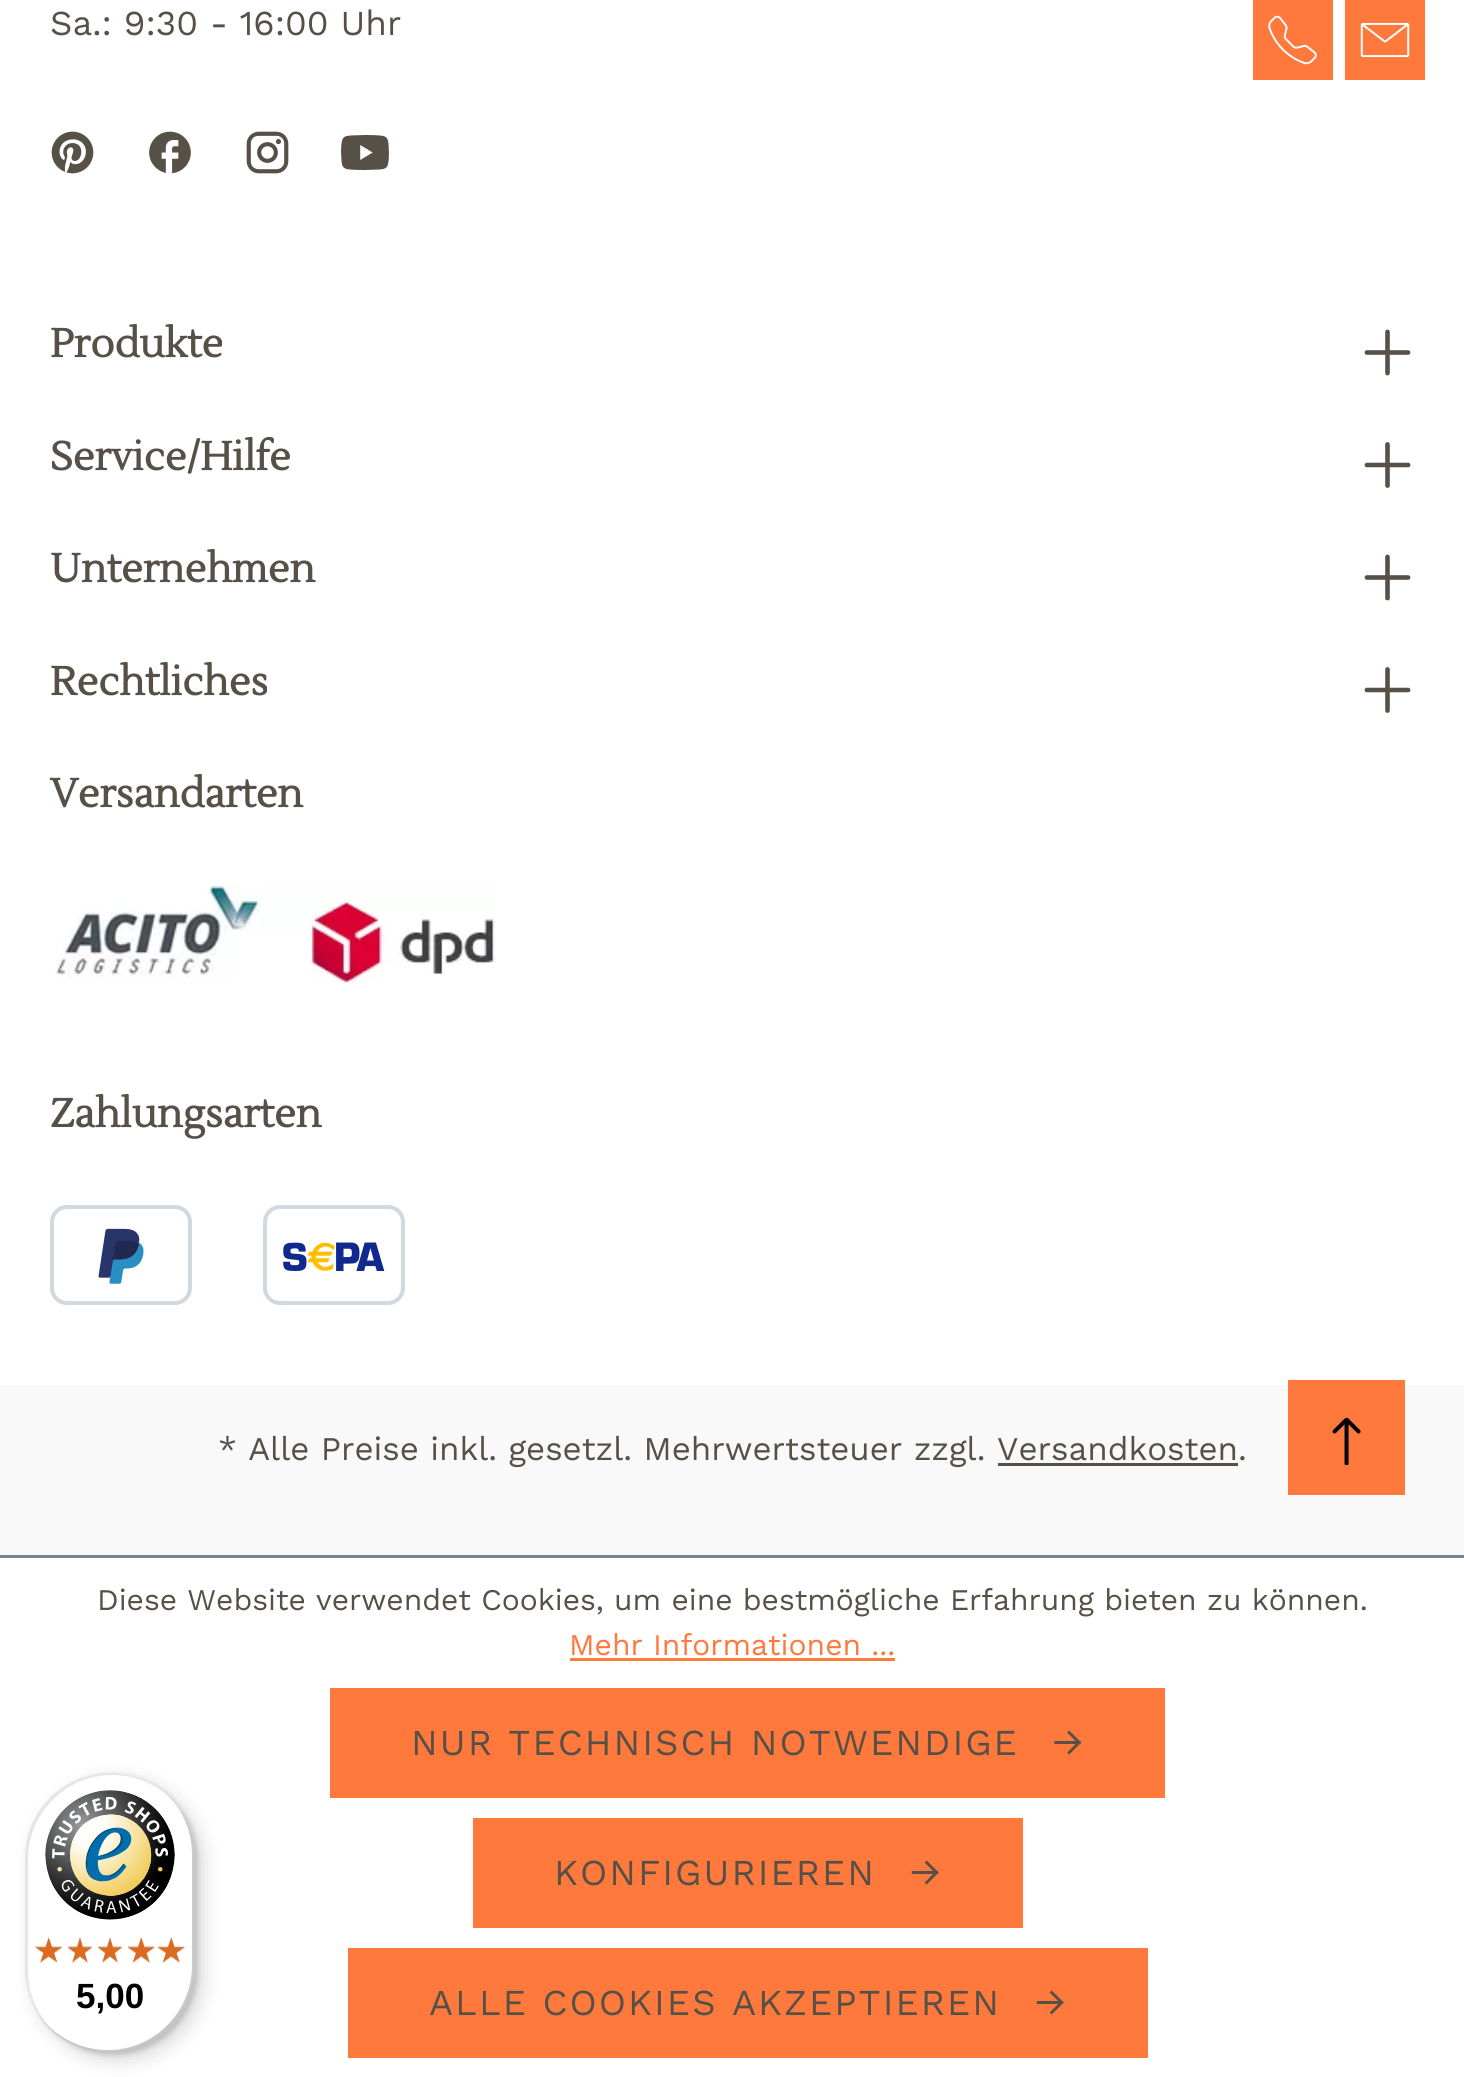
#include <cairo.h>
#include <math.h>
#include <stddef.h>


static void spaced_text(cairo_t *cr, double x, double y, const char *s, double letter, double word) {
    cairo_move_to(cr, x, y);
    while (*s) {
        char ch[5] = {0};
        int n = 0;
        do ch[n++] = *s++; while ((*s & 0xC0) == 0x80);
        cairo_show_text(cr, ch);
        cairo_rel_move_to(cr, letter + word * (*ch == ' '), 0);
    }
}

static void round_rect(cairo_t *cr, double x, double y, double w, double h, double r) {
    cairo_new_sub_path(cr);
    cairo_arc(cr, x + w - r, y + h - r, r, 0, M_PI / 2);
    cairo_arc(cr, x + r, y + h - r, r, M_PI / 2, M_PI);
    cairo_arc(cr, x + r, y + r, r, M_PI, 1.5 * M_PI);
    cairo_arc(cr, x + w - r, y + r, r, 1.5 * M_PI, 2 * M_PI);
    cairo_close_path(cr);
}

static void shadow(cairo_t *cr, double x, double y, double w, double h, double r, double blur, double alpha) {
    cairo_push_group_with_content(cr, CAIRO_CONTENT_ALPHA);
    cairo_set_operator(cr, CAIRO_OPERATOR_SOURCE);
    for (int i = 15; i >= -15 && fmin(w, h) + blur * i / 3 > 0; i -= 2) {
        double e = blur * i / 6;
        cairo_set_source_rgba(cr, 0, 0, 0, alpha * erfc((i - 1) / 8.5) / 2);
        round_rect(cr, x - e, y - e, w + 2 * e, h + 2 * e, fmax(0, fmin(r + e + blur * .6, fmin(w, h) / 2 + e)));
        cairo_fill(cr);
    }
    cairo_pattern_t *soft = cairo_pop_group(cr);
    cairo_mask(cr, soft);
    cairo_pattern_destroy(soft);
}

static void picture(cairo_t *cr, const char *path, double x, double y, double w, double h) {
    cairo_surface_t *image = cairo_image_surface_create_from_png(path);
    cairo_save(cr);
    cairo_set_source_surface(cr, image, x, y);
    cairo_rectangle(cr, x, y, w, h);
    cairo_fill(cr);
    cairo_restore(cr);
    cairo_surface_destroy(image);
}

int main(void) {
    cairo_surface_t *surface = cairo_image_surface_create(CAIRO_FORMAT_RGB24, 1464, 2077);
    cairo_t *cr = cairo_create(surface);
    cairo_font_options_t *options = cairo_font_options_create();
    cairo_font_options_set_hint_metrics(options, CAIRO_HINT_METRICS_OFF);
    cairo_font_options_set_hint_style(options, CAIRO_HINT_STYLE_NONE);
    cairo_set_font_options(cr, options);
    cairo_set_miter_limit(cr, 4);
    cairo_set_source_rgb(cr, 1, 1, 1);
    cairo_paint(cr);
    cairo_select_font_face(cr, "Work Sans", CAIRO_FONT_SLANT_NORMAL, CAIRO_FONT_WEIGHT_NORMAL);
    cairo_set_font_size(cr, 35);
    cairo_set_source_rgb(cr, 0.341, 0.314, 0.275);
    cairo_move_to(cr, 50, 35);
    cairo_show_text(cr, "Sa.: 9:30 - 16:00 Uhr");
    picture(cr, "img1.png", 51, 131, 43, 43);
    picture(cr, "img2.png", 149, 131, 42, 43);
    picture(cr, "img3.png", 246, 131, 43, 43);
    picture(cr, "img4.png", 341, 135, 48, 35);
    cairo_select_font_face(cr, "Lustria", CAIRO_FONT_SLANT_NORMAL, CAIRO_FONT_WEIGHT_BOLD);
    cairo_set_font_size(cr, 40);
    cairo_move_to(cr, 50, 357);
    cairo_show_text(cr, "Produkte");
    picture(cr, "img5.png", 1364, 329, 47, 47);
    cairo_move_to(cr, 50, 470);
    cairo_show_text(cr, "Service/Hilfe");
    picture(cr, "img6.png", 1364, 442, 47, 46);
    cairo_move_to(cr, 50, 582);
    cairo_show_text(cr, "Unternehmen");
    picture(cr, "img5.png", 1364, 554, 47, 47);
    cairo_move_to(cr, 50, 695);
    cairo_show_text(cr, "Rechtliches");
    picture(cr, "img6.png", 1364, 667, 47, 46);
    cairo_move_to(cr, 50, 807);
    cairo_show_text(cr, "Versandarten");
    picture(cr, "img7.png", 56, 885, 440, 100);
    cairo_move_to(cr, 50, 1127);
    cairo_show_text(cr, "Zahlungsarten");
    picture(cr, "img8.png", 50, 1205, 142, 100);
    picture(cr, "img9.png", 263, 1205, 142, 100);
    cairo_set_source_rgb(cr, 0.976, 0.976, 0.976);
    cairo_rectangle(cr, 0, 1385, 1464, 170);
    cairo_fill(cr);
    cairo_select_font_face(cr, "Work Sans", CAIRO_FONT_SLANT_NORMAL, CAIRO_FONT_WEIGHT_NORMAL);
    cairo_set_font_size(cr, 33.1);
    cairo_set_source_rgb(cr, 0.341, 0.314, 0.275);
    cairo_move_to(cr, 218, 1460);
    cairo_show_text(cr, "* Alle Preise inkl. gesetzl. Mehrwertsteuer zzgl.");
    cairo_move_to(cr, 997, 1460);
    cairo_show_text(cr, "Versandkosten.");
    cairo_rectangle(cr, 998, 1463, 240, 3);
    cairo_fill(cr);
    cairo_set_source_rgb(cr, 1, 0.471, 0.235);
    cairo_rectangle(cr, 1253, 0, 80, 80);
    cairo_fill(cr);
    picture(cr, "img10.png", 1268, 15, 49, 50);
    cairo_rectangle(cr, 1345, 0, 80, 80);
    cairo_fill(cr);
    picture(cr, "img11.png", 1360, 22, 50, 36);
    cairo_rectangle(cr, 1288, 1380, 117, 115);
    cairo_fill(cr);
    picture(cr, "img12.png", 1332, 1418, 29, 47);
    cairo_set_source_rgb(cr, 0.475, 0.518, 0.565);
    cairo_rectangle(cr, 0, 1555, 1464, 3);
    cairo_fill(cr);
    cairo_set_font_size(cr, 30);
    cairo_set_source_rgb(cr, 0.341, 0.314, 0.275);
    cairo_move_to(cr, 97, 1610);
    cairo_show_text(cr, "Diese Website verwendet Cookies, um eine bestmögliche Erfahrung bieten zu können.");
    cairo_set_source_rgb(cr, 1, 0.471, 0.235);
    cairo_move_to(cr, 569, 1655);
    cairo_show_text(cr, "Mehr Informationen ...");
    cairo_rectangle(cr, 570, 1658, 325, 3);
    cairo_fill(cr);
    cairo_rectangle(cr, 330, 1688, 835, 110);
    cairo_fill(cr);
    cairo_set_font_size(cr, 36.5);
    cairo_set_source_rgb(cr, 0.341, 0.314, 0.275);
    spaced_text(cr, 411, 1755, "NUR TECHNISCH NOTWENDIGE", 2, 0);
    picture(cr, "img13.png", 1054, 1730, 28, 25);
    cairo_set_source_rgb(cr, 1, 0.471, 0.235);
    cairo_rectangle(cr, 473, 1818, 550, 110);
    cairo_fill(cr);
    cairo_set_source_rgb(cr, 0.341, 0.314, 0.275);
    spaced_text(cr, 554, 1885, "KONFIGURIEREN", 2, 0);
    picture(cr, "img14.png", 911, 1860, 28, 25);
    cairo_set_source_rgb(cr, 1, 0.471, 0.235);
    cairo_rectangle(cr, 348, 1948, 800, 110);
    cairo_fill(cr);
    cairo_set_source_rgb(cr, 0.341, 0.314, 0.275);
    spaced_text(cr, 429, 2015, "ALLE COOKIES AKZEPTIEREN", 2, 0);
    picture(cr, "img14.png", 1036, 1990, 28, 25);
    cairo_set_source_rgb(cr, 0, 0, 0);
    shadow(cr, 33, 1780, 170, 280, 85, 10, 0.15);
    shadow(cr, 28, 1775, 170, 280, 85, 2.5, 0.15);
    cairo_set_source_rgb(cr, 1, 1, 1);
    round_rect(cr, 25, 1773, 170, 280, 85);
    cairo_fill(cr);
    cairo_set_source_rgba(cr, 0, 0, 0, 0.1);
    cairo_new_path(cr);
    cairo_move_to(cr, 112, 1775);
    cairo_curve_to(cr, 132, 1775, 150, 1782, 165, 1793);
    cairo_curve_to(cr, 150, 1781, 131, 1773, 110, 1773);
    cairo_curve_to(cr, 63, 1773, 25, 1811, 25, 1858);
    cairo_line_to(cr, 25, 1968);
    cairo_curve_to(cr, 25, 1997, 39, 2022, 61, 2038);
    cairo_curve_to(cr, 41, 2022, 28, 1998, 28, 1970);
    cairo_line_to(cr, 28, 1860);
    cairo_curve_to(cr, 28, 1813, 66, 1775, 112, 1775);
    cairo_close_path(cr);
    cairo_fill(cr);
    cairo_set_source_rgba(cr, 0, 0, 0, 0.2);
    cairo_new_path(cr);
    cairo_move_to(cr, 44, 2022);
    cairo_curve_to(cr, 60, 2041, 84, 2053, 110, 2053);
    cairo_curve_to(cr, 157, 2053, 195, 2015, 195, 1968);
    cairo_line_to(cr, 195, 1858);
    cairo_curve_to(cr, 195, 1835, 185, 1813, 170, 1798);
    cairo_curve_to(cr, 184, 1813, 192, 1833, 192, 1855);
    cairo_line_to(cr, 192, 1965);
    cairo_curve_to(cr, 192, 2012, 154, 2050, 108, 2050);
    cairo_curve_to(cr, 83, 2050, 60, 2039, 44, 2022);
    cairo_close_path(cr);
    cairo_fill(cr);
    cairo_set_source_rgba(cr, 0.196, 0.196, 0.196, 0.2);
    cairo_new_path(cr);
    cairo_move_to(cr, 34, 2006);
    cairo_curve_to(cr, 48, 2034, 77, 2053, 110, 2053);
    cairo_curve_to(cr, 157, 2053, 195, 2015, 195, 1968);
    cairo_line_to(cr, 195, 1858);
    cairo_curve_to(cr, 195, 1841, 190, 1825, 182, 1812);
    cairo_curve_to(cr, 189, 1825, 194, 1840, 194, 1856);
    cairo_line_to(cr, 194, 1966);
    cairo_curve_to(cr, 194, 2013, 155, 2051, 109, 2051);
    cairo_curve_to(cr, 76, 2051, 48, 2033, 34, 2006);
    cairo_close_path(cr);
    cairo_fill(cr);
    cairo_set_source_rgba(cr, 1, 1, 1, 0.3);
    cairo_new_path(cr);
    cairo_move_to(cr, 34, 2006);
    cairo_curve_to(cr, 48, 2034, 77, 2053, 110, 2053);
    cairo_curve_to(cr, 157, 2053, 195, 2015, 195, 1968);
    cairo_line_to(cr, 195, 1858);
    cairo_curve_to(cr, 195, 1844, 192, 1831, 186, 1820);
    cairo_curve_to(cr, 191, 1831, 194, 1843, 194, 1856);
    cairo_line_to(cr, 194, 1966);
    cairo_curve_to(cr, 194, 2013, 156, 2051, 109, 2051);
    cairo_curve_to(cr, 76, 2051, 48, 2033, 34, 2006);
    cairo_close_path(cr);
    cairo_fill(cr);
    picture(cr, "img15.png", 45, 1790, 130, 130);
    picture(cr, "img16.png", 35, 1938, 27, 24);
    picture(cr, "img17.png", 68, 1938, 24, 25);
    picture(cr, "img18.png", 98, 1938, 24, 24);
    picture(cr, "img19.png", 128, 1937, 27, 26);
    picture(cr, "img20.png", 158, 1938, 27, 24);
    picture(cr, "img21.png", 35, 1937, 27, 26);
    picture(cr, "img22.png", 68, 1937, 24, 26);
    picture(cr, "img23.png", 98, 1937, 24, 26);
    picture(cr, "img24.png", 128, 1937, 27, 26);
    picture(cr, "img25.png", 158, 1937, 27, 26);
    cairo_select_font_face(cr, "Liberation Sans", CAIRO_FONT_SLANT_NORMAL, CAIRO_FONT_WEIGHT_BOLD);
    cairo_set_font_size(cr, 35);
    cairo_set_source_rgb(cr, 0, 0, 0);
    cairo_move_to(cr, 76, 2008);
    cairo_show_text(cr, "5,00");
    cairo_surface_write_to_png(surface, "page.png");
    cairo_font_options_destroy(options);
    cairo_destroy(cr);
    cairo_surface_destroy(surface);
    return 0;
}
